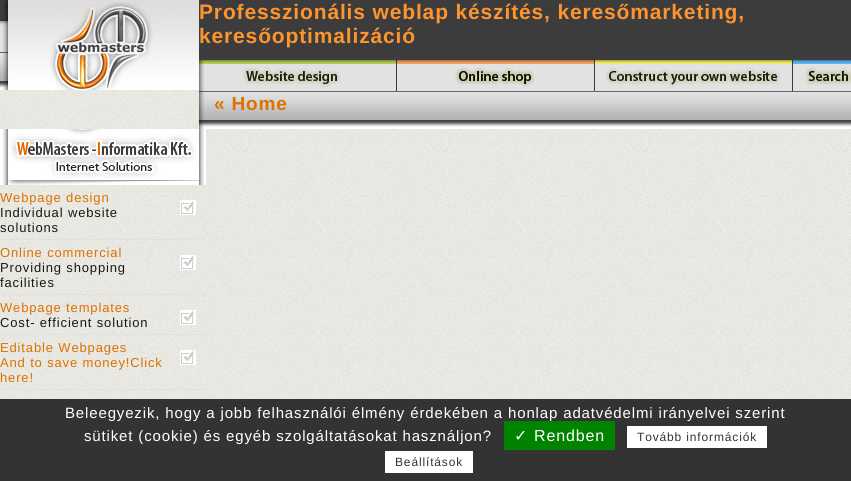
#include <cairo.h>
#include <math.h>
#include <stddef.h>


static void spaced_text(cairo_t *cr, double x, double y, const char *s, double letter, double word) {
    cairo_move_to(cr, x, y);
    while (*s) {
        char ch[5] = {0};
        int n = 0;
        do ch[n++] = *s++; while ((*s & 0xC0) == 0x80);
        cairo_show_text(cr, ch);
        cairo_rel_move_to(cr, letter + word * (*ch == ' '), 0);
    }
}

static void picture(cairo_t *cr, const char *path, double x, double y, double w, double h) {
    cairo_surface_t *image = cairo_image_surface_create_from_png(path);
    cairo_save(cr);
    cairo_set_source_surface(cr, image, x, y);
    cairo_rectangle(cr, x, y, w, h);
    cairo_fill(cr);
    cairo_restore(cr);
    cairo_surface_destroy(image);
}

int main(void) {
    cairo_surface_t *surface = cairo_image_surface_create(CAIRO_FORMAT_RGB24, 851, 481);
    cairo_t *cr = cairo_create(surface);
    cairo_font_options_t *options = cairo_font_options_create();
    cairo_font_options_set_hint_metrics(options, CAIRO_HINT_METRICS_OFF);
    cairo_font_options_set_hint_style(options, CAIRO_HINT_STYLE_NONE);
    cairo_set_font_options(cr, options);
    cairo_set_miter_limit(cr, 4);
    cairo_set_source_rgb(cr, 1, 1, 1);
    cairo_paint(cr);
    picture(cr, "img1.png", 0, 90, 851, 309);
    picture(cr, "img2.png", 0, 0, 8, 90);
    picture(cr, "img3.png", 8, 0, 191, 90);
    picture(cr, "img4.png", 50, 2, 103, 88);
    cairo_set_source_rgb(cr, 0.235, 0.235, 0.235);
    cairo_rectangle(cr, 199, 0, 652, 60);
    cairo_fill(cr);
    cairo_select_font_face(cr, "Liberation Sans", CAIRO_FONT_SLANT_NORMAL, CAIRO_FONT_WEIGHT_BOLD);
    cairo_set_font_size(cr, 21);
    cairo_set_source_rgb(cr, 0.996, 0.58, 0.184);
    spaced_text(cr, 199, 19, "Professzionális weblap készítés, keresőmarketing,", 0.85, 0);
    spaced_text(cr, 199, 43, "keresőoptimalizáció", 0.85, 0);
    picture(cr, "img5.png", 199, 60, 197, 31);
    picture(cr, "img6.png", 396, 60, 198, 31);
    picture(cr, "img7.png", 594, 60, 198, 31);
    picture(cr, "img8.png", 792, 60, 59, 31);
    picture(cr, "img9.png", 205, 91, 646, 38);
    picture(cr, "img10.png", 199, 91, 6, 38);
    cairo_set_font_size(cr, 19);
    cairo_set_source_rgb(cr, 0.859, 0.443, 0);
    spaced_text(cr, 214, 110, "« Home", 0.85, 0);
    picture(cr, "img11.png", 0, 129, 206, 56);
    cairo_set_source_rgb(cr, 0.878, 0.878, 0.878);
    cairo_rectangle(cr, 0, 239, 206, 1);
    cairo_fill(cr);
    cairo_select_font_face(cr, "Liberation Sans", CAIRO_FONT_SLANT_NORMAL, CAIRO_FONT_WEIGHT_NORMAL);
    cairo_set_font_size(cr, 13);
    cairo_set_source_rgb(cr, 0.859, 0.443, 0);
    spaced_text(cr, 0, 202, "Webpage design", 0.85, 0);
    cairo_set_source_rgb(cr, 0.094, 0.094, 0.063);
    spaced_text(cr, 0, 217, "Individual website", 0.85, 0);
    spaced_text(cr, 0, 232, "solutions", 0.85, 0);
    picture(cr, "img12.png", 180, 200, 16, 15);
    cairo_set_source_rgb(cr, 0.878, 0.878, 0.878);
    cairo_rectangle(cr, 0, 294, 206, 1);
    cairo_fill(cr);
    cairo_set_source_rgb(cr, 0.859, 0.443, 0);
    spaced_text(cr, 0, 257, "Online commercial", 0.85, 0);
    cairo_set_source_rgb(cr, 0.094, 0.094, 0.063);
    spaced_text(cr, 0, 272, "Providing shopping", 0.85, 0);
    spaced_text(cr, 0, 287, "facilities", 0.85, 0);
    picture(cr, "img12.png", 180, 255, 16, 15);
    cairo_set_source_rgb(cr, 0.878, 0.878, 0.878);
    cairo_rectangle(cr, 0, 334, 206, 1);
    cairo_fill(cr);
    cairo_set_source_rgb(cr, 0.859, 0.443, 0);
    spaced_text(cr, 0, 312, "Webpage templates", 0.85, 0);
    cairo_set_source_rgb(cr, 0.094, 0.094, 0.063);
    spaced_text(cr, 0, 327, "Cost- efficient solution", 0.85, 0);
    picture(cr, "img12.png", 180, 310, 16, 15);
    cairo_set_source_rgb(cr, 0.878, 0.878, 0.878);
    cairo_rectangle(cr, 0, 389, 206, 1);
    cairo_fill(cr);
    cairo_set_source_rgb(cr, 0.859, 0.443, 0);
    spaced_text(cr, 0, 352, "Editable Webpages", 0.85, 0);
    spaced_text(cr, 0, 367, "And to save money!Click", 0.85, 0);
    spaced_text(cr, 0, 382, "here!", 0.85, 0);
    picture(cr, "img12.png", 180, 350, 16, 15);
    cairo_set_source_rgb(cr, 0.2, 0.2, 0.2);
    cairo_rectangle(cr, 0, 399, 851, 82);
    cairo_fill(cr);
    cairo_set_font_size(cr, 15);
    cairo_set_source_rgb(cr, 1, 1, 1);
    spaced_text(cr, 65, 418, "Beleegyezik, hogy a jobb felhasználói élmény érdekében a honlap adatvédelmi irányelvei szerint", 0.85, 0);
    spaced_text(cr, 84, 441, "sütiket (cookie) és egyéb szolgáltatásokat használjon?", 0.85, 0);
    cairo_set_source_rgb(cr, 0, 0.514, 0);
    cairo_rectangle(cr, 504, 421, 111, 29);
    cairo_fill(cr);
    cairo_select_font_face(cr, "DejaVu Sans", CAIRO_FONT_SLANT_NORMAL, CAIRO_FONT_WEIGHT_NORMAL);
    cairo_set_font_size(cr, 16);
    cairo_set_source_rgb(cr, 1, 1, 1);
    spaced_text(cr, 514, 441, "✓", 0.85, 0);
    cairo_select_font_face(cr, "Liberation Sans", CAIRO_FONT_SLANT_NORMAL, CAIRO_FONT_WEIGHT_NORMAL);
    spaced_text(cr, 534, 441, "Rendben", 0.85, 0);
    cairo_rectangle(cr, 627, 426, 140, 22);
    cairo_fill(cr);
    cairo_set_font_size(cr, 12);
    cairo_set_source_rgb(cr, 0.2, 0.2, 0.2);
    spaced_text(cr, 637, 441, "Tovább információk", 0.85, 0);
    cairo_set_source_rgb(cr, 1, 1, 1);
    cairo_rectangle(cr, 385, 451, 88, 22);
    cairo_fill(cr);
    cairo_set_source_rgb(cr, 0.2, 0.2, 0.2);
    spaced_text(cr, 395, 466, "Beállítások", 0.85, 0);
    cairo_surface_write_to_png(surface, "page.png");
    cairo_font_options_destroy(options);
    cairo_destroy(cr);
    cairo_surface_destroy(surface);
    return 0;
}
